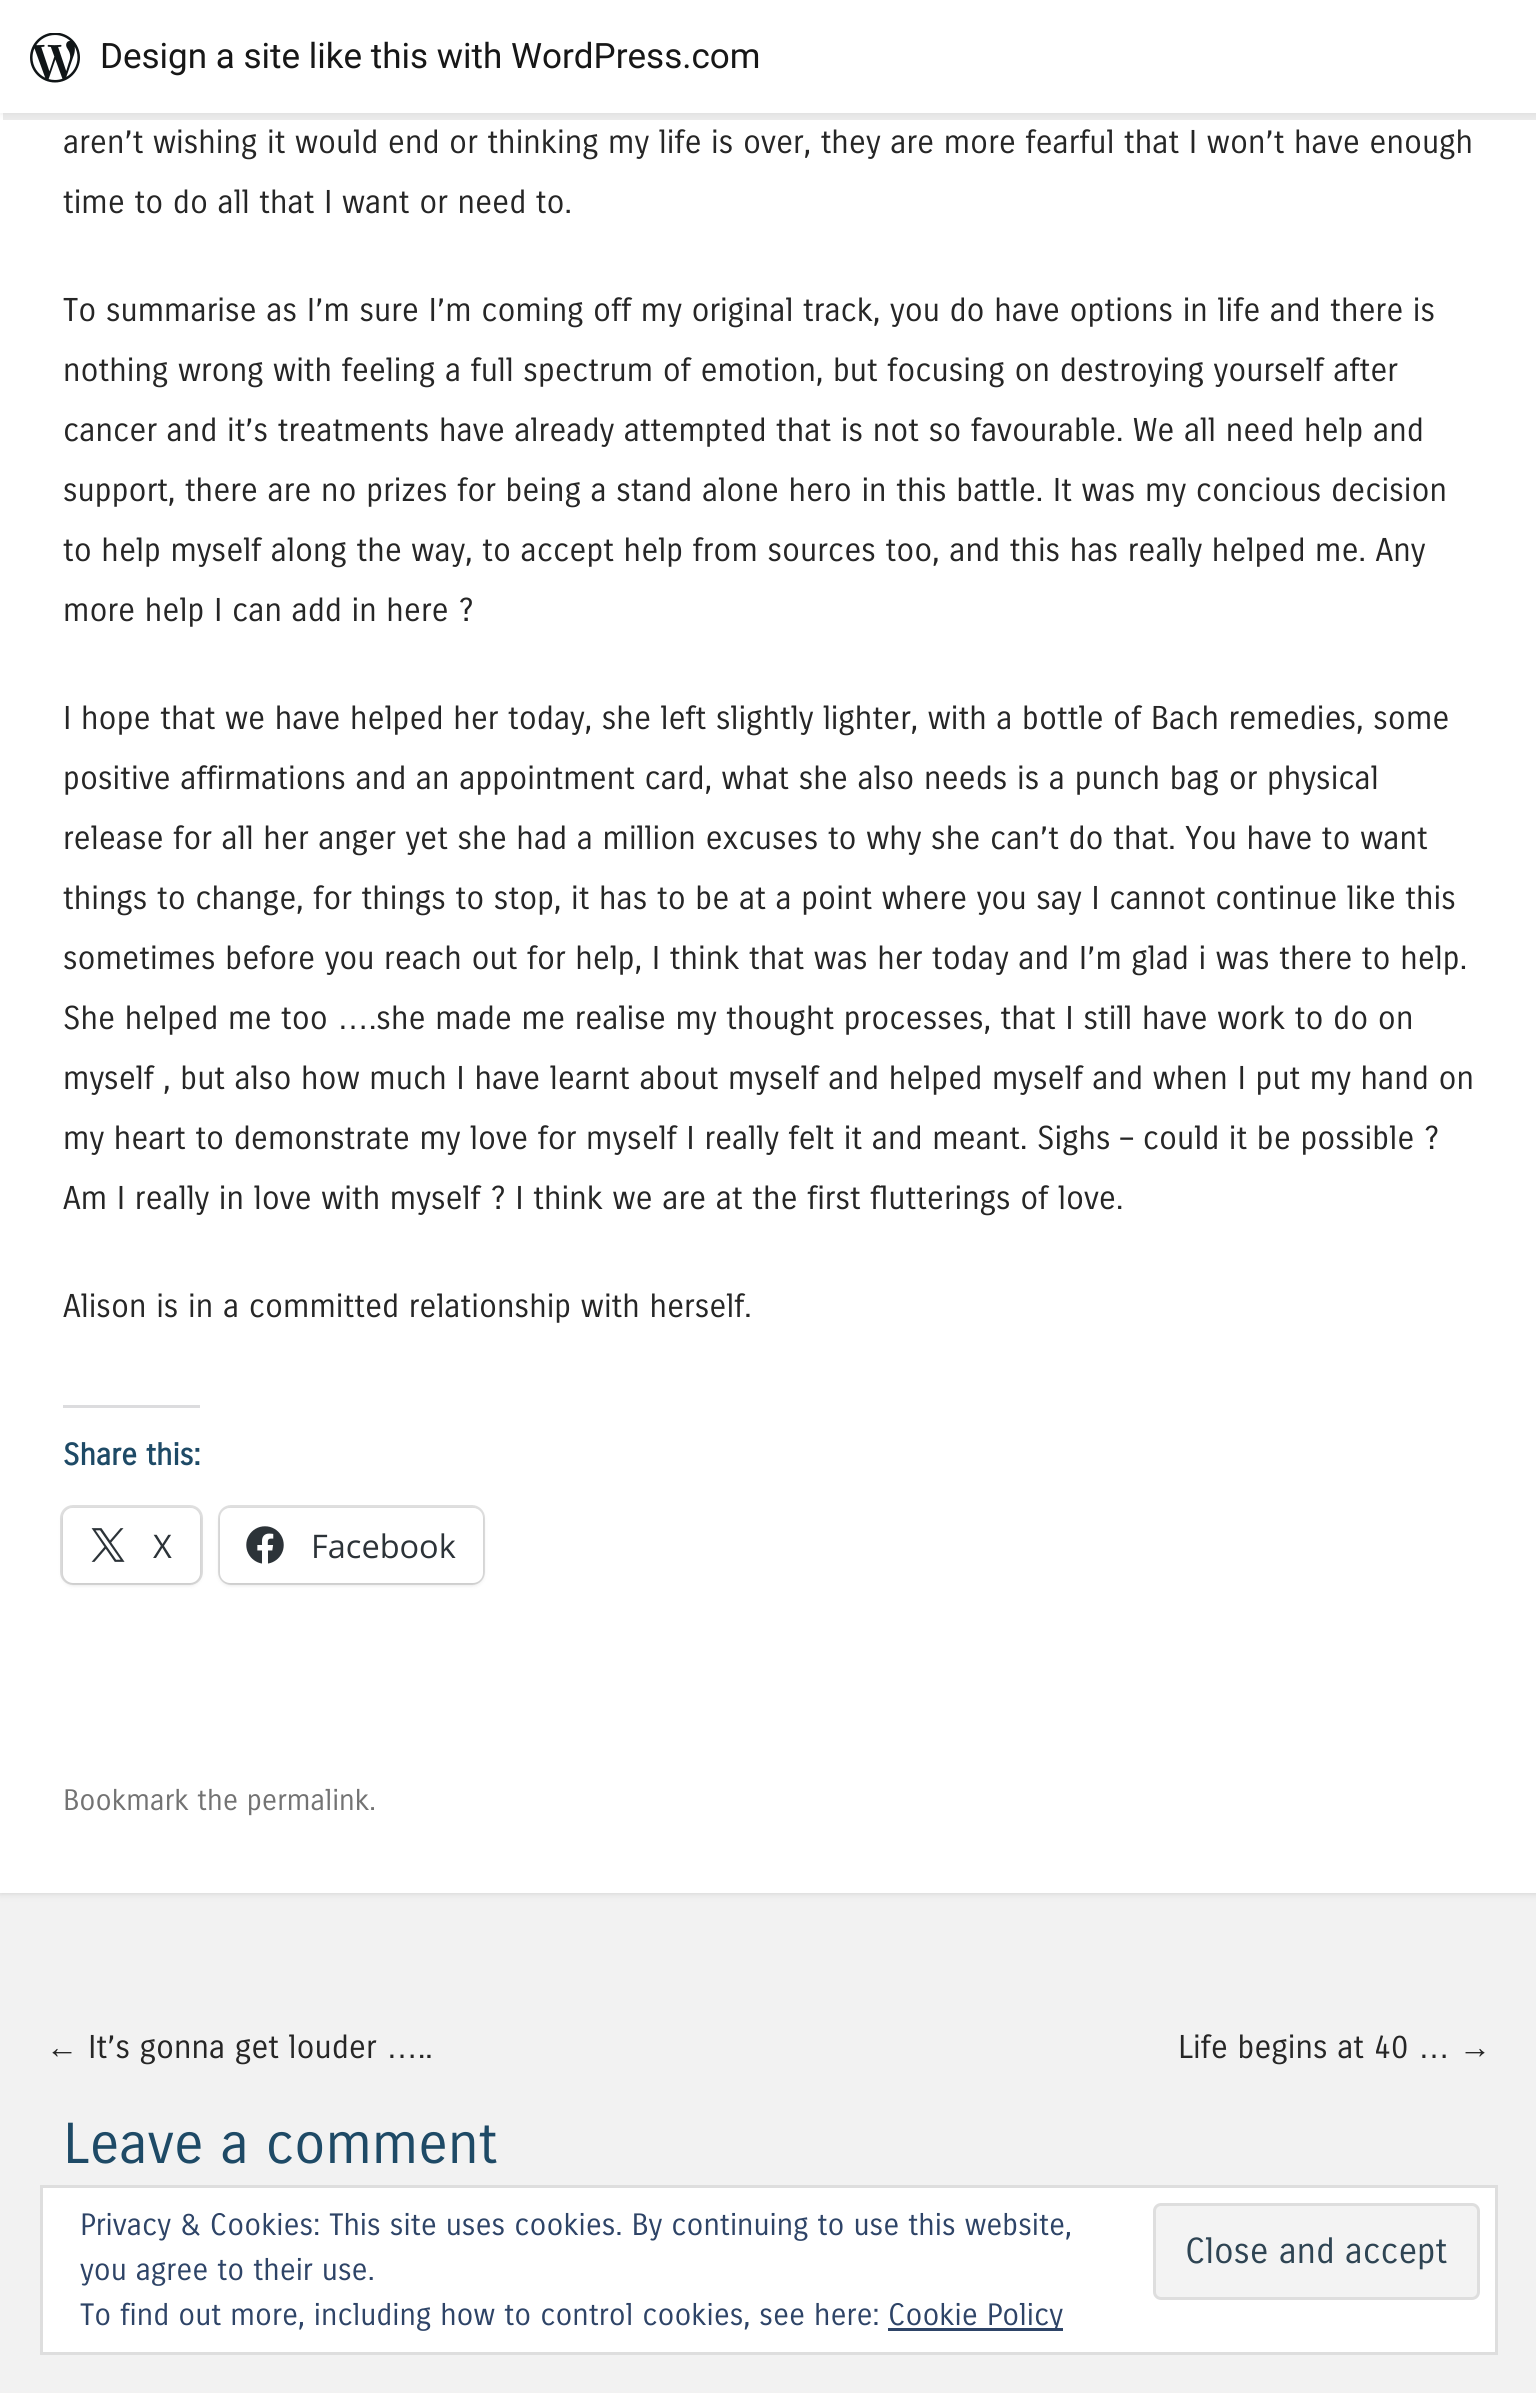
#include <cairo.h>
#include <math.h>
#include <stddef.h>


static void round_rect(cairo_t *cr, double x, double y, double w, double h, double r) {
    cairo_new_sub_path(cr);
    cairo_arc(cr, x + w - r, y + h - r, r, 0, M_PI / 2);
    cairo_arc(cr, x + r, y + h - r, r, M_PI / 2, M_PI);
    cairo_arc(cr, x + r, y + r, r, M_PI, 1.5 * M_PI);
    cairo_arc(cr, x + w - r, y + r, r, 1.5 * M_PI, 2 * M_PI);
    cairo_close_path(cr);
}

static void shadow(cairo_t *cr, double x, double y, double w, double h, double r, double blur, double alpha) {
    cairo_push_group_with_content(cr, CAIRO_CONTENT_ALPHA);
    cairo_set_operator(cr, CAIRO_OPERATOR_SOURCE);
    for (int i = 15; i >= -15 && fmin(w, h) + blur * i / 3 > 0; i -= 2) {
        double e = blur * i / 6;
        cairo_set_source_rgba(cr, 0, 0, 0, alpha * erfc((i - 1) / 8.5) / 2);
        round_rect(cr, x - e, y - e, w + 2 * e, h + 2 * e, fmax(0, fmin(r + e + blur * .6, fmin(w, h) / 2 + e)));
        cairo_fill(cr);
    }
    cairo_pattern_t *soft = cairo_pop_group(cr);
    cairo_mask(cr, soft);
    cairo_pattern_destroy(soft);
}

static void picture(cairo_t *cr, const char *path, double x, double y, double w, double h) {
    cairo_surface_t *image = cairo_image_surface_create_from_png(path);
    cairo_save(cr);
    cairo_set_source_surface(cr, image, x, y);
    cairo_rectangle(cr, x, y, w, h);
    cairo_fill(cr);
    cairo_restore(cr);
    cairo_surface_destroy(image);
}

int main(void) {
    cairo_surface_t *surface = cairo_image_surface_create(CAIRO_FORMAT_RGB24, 1536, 2393);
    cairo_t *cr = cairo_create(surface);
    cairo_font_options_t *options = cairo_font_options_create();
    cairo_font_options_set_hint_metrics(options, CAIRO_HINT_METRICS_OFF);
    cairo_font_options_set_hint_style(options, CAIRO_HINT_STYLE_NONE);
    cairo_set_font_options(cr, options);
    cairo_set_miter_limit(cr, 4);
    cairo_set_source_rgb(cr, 0.949, 0.949, 0.949);
    cairo_paint(cr);
    cairo_set_source_rgb(cr, 0.392, 0.392, 0.392);
    shadow(cr, 0, -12, 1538, 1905, 0, 4, 0.25);
    cairo_set_source_rgb(cr, 1, 1, 1);
    cairo_rectangle(cr, 0, 113, 1536, 1780);
    cairo_fill(cr);
    cairo_set_source_rgb(cr, 0, 0, 0);
    shadow(cr, 0, 3, 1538, 112, 0, 2.5, 0.05);
    cairo_set_source_rgba(cr, 0, 0, 0, 0.08);
    cairo_new_path(cr);
    cairo_move_to(cr, 3, 112);
    cairo_line_to(cr, 3, 120);
    cairo_line_to(cr, 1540, 120);
    cairo_line_to(cr, 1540, 8);
    cairo_line_to(cr, 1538, 8);
    cairo_line_to(cr, 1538, 112);
    cairo_close_path(cr);
    cairo_fill(cr);
    cairo_set_source_rgb(cr, 1, 1, 1);
    cairo_rectangle(cr, 0, 0, 1536, 113);
    cairo_fill(cr);
    picture(cr, "img1.png", 30, 33, 50, 50);
    cairo_select_font_face(cr, "Roboto", CAIRO_FONT_SLANT_NORMAL, CAIRO_FONT_WEIGHT_NORMAL);
    cairo_set_font_size(cr, 35);
    cairo_set_source_rgb(cr, 0.09, 0.09, 0.09);
    cairo_move_to(cr, 100, 68);
    cairo_show_text(cr, "Design a site like this with WordPress.com");
    cairo_select_font_face(cr, "Carrois Gothic", CAIRO_FONT_SLANT_NORMAL, CAIRO_FONT_WEIGHT_NORMAL);
    cairo_set_font_size(cr, 32);
    cairo_set_source_rgb(cr, 0.149, 0.149, 0.149);
    cairo_move_to(cr, 63, 153);
    cairo_show_text(cr, "aren’t wishing it would end or thinking my life is over, they are more fearful that I won’t have enough");
    cairo_move_to(cr, 63, 213);
    cairo_show_text(cr, "time to do all that I want or need to.");
    cairo_move_to(cr, 63, 321);
    cairo_show_text(cr, "To summarise as I’m sure I’m coming off my original track, you do have options in life and there is");
    cairo_move_to(cr, 63, 381);
    cairo_show_text(cr, "nothing wrong with feeling a full spectrum of emotion, but focusing on destroying yourself after");
    cairo_move_to(cr, 63, 441);
    cairo_show_text(cr, "cancer and it’s treatments have already attempted that is not so favourable. We all need help and");
    cairo_move_to(cr, 63, 501);
    cairo_show_text(cr, "support, there are no prizes for being a stand alone hero in this battle. It was my concious decision");
    cairo_move_to(cr, 63, 561);
    cairo_show_text(cr, "to help myself along the way, to accept help from sources too, and this has really helped me. Any");
    cairo_move_to(cr, 63, 621);
    cairo_show_text(cr, "more help I can add in here ?");
    cairo_move_to(cr, 63, 729);
    cairo_show_text(cr, "I hope that we have helped her today, she left slightly lighter, with a bottle of Bach remedies, some");
    cairo_move_to(cr, 63, 789);
    cairo_show_text(cr, "positive affirmations and an appointment card, what she also needs is a punch bag or physical");
    cairo_move_to(cr, 63, 849);
    cairo_show_text(cr, "release for all her anger yet she had a million excuses to why she can’t do that. You have to want");
    cairo_move_to(cr, 63, 909);
    cairo_show_text(cr, "things to change, for things to stop, it has to be at a point where you say I cannot continue like this");
    cairo_move_to(cr, 63, 969);
    cairo_show_text(cr, "sometimes before you reach out for help, I think that was her today and I’m glad i was there to help.");
    cairo_move_to(cr, 63, 1029);
    cairo_show_text(cr, "She helped me too");
    cairo_select_font_face(cr, "Liberation Sans", CAIRO_FONT_SLANT_NORMAL, CAIRO_FONT_WEIGHT_NORMAL);
    cairo_move_to(cr, 337, 1029);
    cairo_show_text(cr, "…");
    cairo_select_font_face(cr, "Carrois Gothic", CAIRO_FONT_SLANT_NORMAL, CAIRO_FONT_WEIGHT_NORMAL);
    cairo_move_to(cr, 369, 1029);
    cairo_show_text(cr, ".she made me realise my thought processes, that I still have work to do on");
    cairo_move_to(cr, 63, 1089);
    cairo_show_text(cr, "myself , but also how much I have learnt about myself and helped myself and when I put my hand on");
    cairo_move_to(cr, 63, 1149);
    cairo_show_text(cr, "my heart to demonstrate my love for myself I really felt it and meant. Sighs – could it be possible ?");
    cairo_move_to(cr, 63, 1209);
    cairo_show_text(cr, "Am I really in love with myself ? I think we are at the first flutterings of love.");
    cairo_move_to(cr, 63, 1317);
    cairo_show_text(cr, "Alison is in a committed relationship with herself.");
    cairo_set_source_rgb(cr, 0.863, 0.863, 0.871);
    cairo_rectangle(cr, 63, 1405, 137, 3);
    cairo_fill(cr);
    cairo_select_font_face(cr, "Carrois Gothic", CAIRO_FONT_SLANT_NORMAL, CAIRO_FONT_WEIGHT_BOLD);
    cairo_set_font_size(cr, 30);
    cairo_set_source_rgb(cr, 0.118, 0.29, 0.4);
    cairo_move_to(cr, 63, 1465);
    cairo_show_text(cr, "Share this:");
    round_rect(cr, 61.5, 1506.5, 140, 77, 11.5);
    cairo_set_source_rgb(cr, 0.878, 0.878, 0.878);
    cairo_set_line_width(cr, 3);
    cairo_stroke(cr);
    cairo_set_source_rgb(cr, 0, 0, 0);
    shadow(cr, 63, 1510, 137, 75, 10, 2.5, 0.12);
    cairo_set_source_rgb(cr, 1, 1, 1);
    round_rect(cr, 63, 1508, 137, 75, 10);
    cairo_fill(cr);
    picture(cr, "img2.png", 91, 1528, 34, 34);
    cairo_select_font_face(cr, "Open Sans", CAIRO_FONT_SLANT_NORMAL, CAIRO_FONT_WEIGHT_NORMAL);
    cairo_set_font_size(cr, 32.5);
    cairo_set_source_rgb(cr, 0.173, 0.2, 0.22);
    cairo_move_to(cr, 153, 1558);
    cairo_show_text(cr, "X");
    round_rect(cr, 219.5, 1506.5, 264, 77, 11.5);
    cairo_set_source_rgb(cr, 0.878, 0.878, 0.878);
    cairo_stroke(cr);
    cairo_set_source_rgb(cr, 0, 0, 0);
    shadow(cr, 220, 1510, 263, 75, 10, 2.5, 0.12);
    cairo_set_source_rgb(cr, 1, 1, 1);
    round_rect(cr, 220, 1508, 263, 75, 10);
    cairo_fill(cr);
    picture(cr, "img3.png", 246, 1526, 38, 38);
    cairo_set_source_rgb(cr, 0.173, 0.2, 0.22);
    cairo_move_to(cr, 311, 1558);
    cairo_show_text(cr, "Facebook");
    cairo_select_font_face(cr, "Carrois Gothic", CAIRO_FONT_SLANT_NORMAL, CAIRO_FONT_WEIGHT_NORMAL);
    cairo_set_font_size(cr, 28.75);
    cairo_set_source_rgb(cr, 0.451, 0.451, 0.451);
    cairo_move_to(cr, 63, 1810);
    cairo_show_text(cr, "Bookmark the permalink.");
    cairo_select_font_face(cr, "Liberation Sans", CAIRO_FONT_SLANT_NORMAL, CAIRO_FONT_WEIGHT_NORMAL);
    cairo_set_font_size(cr, 32);
    cairo_set_source_rgb(cr, 0.149, 0.149, 0.149);
    cairo_move_to(cr, 46, 2058);
    cairo_show_text(cr, "←");
    cairo_select_font_face(cr, "Carrois Gothic", CAIRO_FONT_SLANT_NORMAL, CAIRO_FONT_WEIGHT_NORMAL);
    cairo_move_to(cr, 88, 2058);
    cairo_show_text(cr, "It’s gonna get louder");
    cairo_select_font_face(cr, "Liberation Sans", CAIRO_FONT_SLANT_NORMAL, CAIRO_FONT_WEIGHT_NORMAL);
    cairo_move_to(cr, 386, 2058);
    cairo_show_text(cr, "…");
    cairo_select_font_face(cr, "Carrois Gothic", CAIRO_FONT_SLANT_NORMAL, CAIRO_FONT_WEIGHT_NORMAL);
    cairo_move_to(cr, 418, 2058);
    cairo_show_text(cr, "..");
    cairo_move_to(cr, 1178, 2058);
    cairo_show_text(cr, "Life begins at 40");
    cairo_select_font_face(cr, "Liberation Sans", CAIRO_FONT_SLANT_NORMAL, CAIRO_FONT_WEIGHT_NORMAL);
    cairo_move_to(cr, 1418, 2058);
    cairo_show_text(cr, "…");
    cairo_move_to(cr, 1459, 2058);
    cairo_show_text(cr, "→");
    cairo_select_font_face(cr, "Carrois Gothic", CAIRO_FONT_SLANT_NORMAL, CAIRO_FONT_WEIGHT_NORMAL);
    cairo_set_font_size(cr, 56);
    cairo_set_source_rgb(cr, 0.118, 0.29, 0.4);
    cairo_move_to(cr, 63, 2163);
    cairo_show_text(cr, "Leave a comment");
    cairo_set_source_rgb(cr, 1, 1, 1);
    cairo_rectangle(cr, 41.5, 2186.5, 1455, 167);
    cairo_fill_preserve(cr);
    cairo_set_source_rgb(cr, 0.871, 0.871, 0.871);
    cairo_stroke(cr);
    cairo_set_font_size(cr, 30);
    cairo_set_source_rgb(cr, 0.18, 0.267, 0.404);
    cairo_move_to(cr, 80, 2235);
    cairo_show_text(cr, "Privacy & Cookies: This site uses cookies. By continuing to use this website,");
    cairo_move_to(cr, 80, 2280);
    cairo_show_text(cr, "you agree to their use.");
    cairo_set_source_rgb(cr, 0.953, 0.953, 0.953);
    round_rect(cr, 1154.5, 2204.5, 324, 94, 6.5);
    cairo_fill_preserve(cr);
    cairo_set_source_rgb(cr, 0.871, 0.871, 0.871);
    cairo_stroke(cr);
    cairo_set_font_size(cr, 35);
    cairo_set_source_rgb(cr, 0.18, 0.267, 0.325);
    cairo_move_to(cr, 1185, 2263);
    cairo_show_text(cr, "Close and accept");
    cairo_set_font_size(cr, 30);
    cairo_set_source_rgb(cr, 0.18, 0.267, 0.404);
    cairo_move_to(cr, 80, 2325);
    cairo_show_text(cr, "To find out more, including how to control cookies, see here:");
    cairo_rectangle(cr, 888, 2328, 175, 3);
    cairo_fill(cr);
    cairo_move_to(cr, 888, 2325);
    cairo_show_text(cr, "Cookie Policy");
    cairo_surface_write_to_png(surface, "page.png");
    cairo_font_options_destroy(options);
    cairo_destroy(cr);
    cairo_surface_destroy(surface);
    return 0;
}
